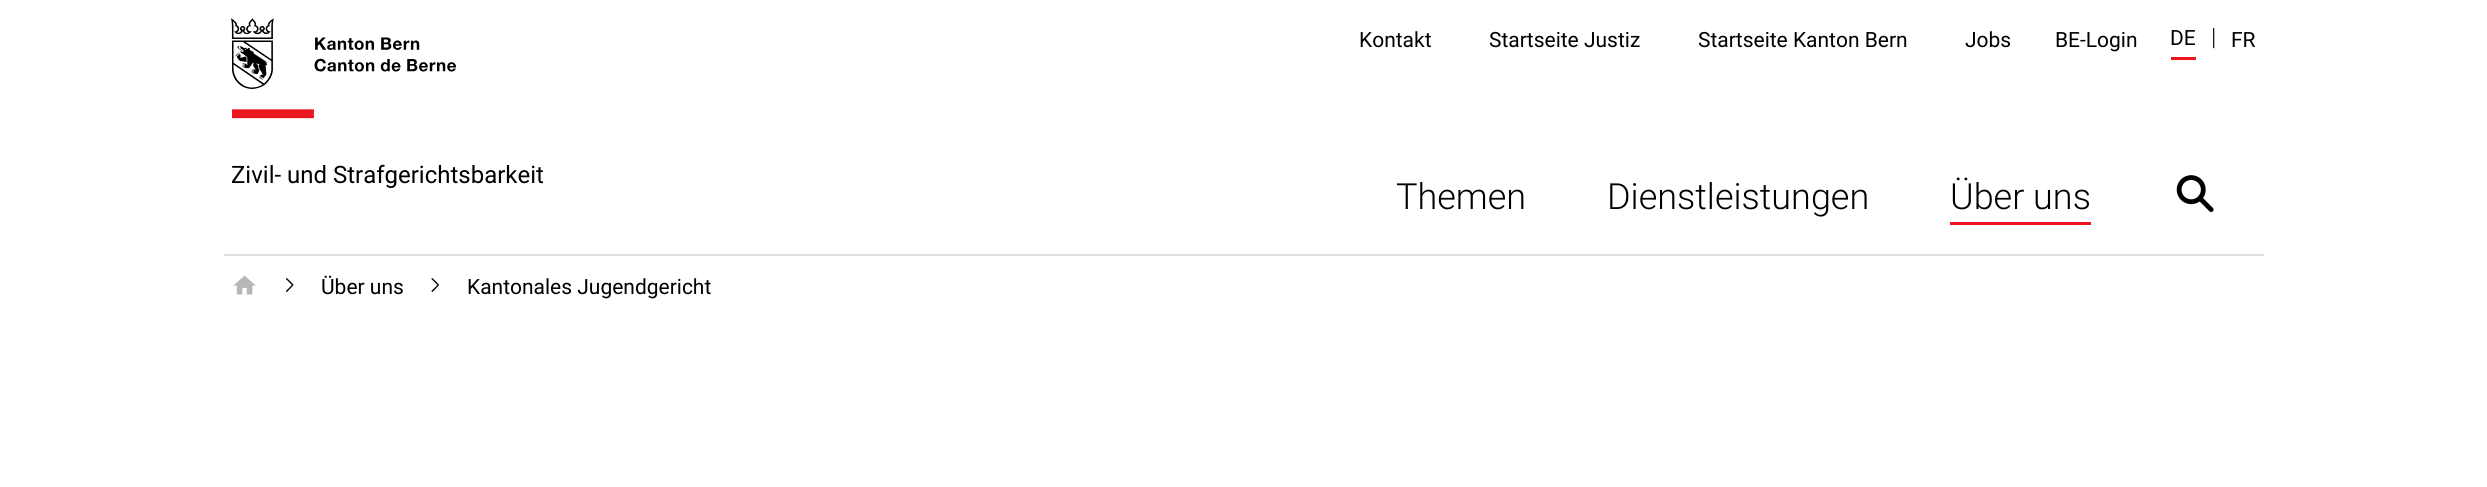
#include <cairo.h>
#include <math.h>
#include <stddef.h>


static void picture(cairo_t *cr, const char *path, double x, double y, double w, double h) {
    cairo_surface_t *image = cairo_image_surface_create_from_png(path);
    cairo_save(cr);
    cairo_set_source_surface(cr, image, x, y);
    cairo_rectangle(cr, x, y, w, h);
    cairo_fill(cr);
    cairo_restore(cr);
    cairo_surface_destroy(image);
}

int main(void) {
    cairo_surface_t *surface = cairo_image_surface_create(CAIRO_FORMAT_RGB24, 2487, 487);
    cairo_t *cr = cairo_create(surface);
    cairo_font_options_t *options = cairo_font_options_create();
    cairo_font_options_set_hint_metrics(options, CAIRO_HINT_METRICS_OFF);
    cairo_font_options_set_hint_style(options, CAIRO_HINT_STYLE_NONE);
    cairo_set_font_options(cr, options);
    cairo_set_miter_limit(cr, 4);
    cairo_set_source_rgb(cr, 1, 1, 1);
    cairo_paint(cr);
    picture(cr, "img1.png", 231, 18, 225, 101);
    cairo_select_font_face(cr, "Roboto", CAIRO_FONT_SLANT_NORMAL, CAIRO_FONT_WEIGHT_NORMAL);
    cairo_set_font_size(cr, 24);
    cairo_set_source_rgb(cr, 0, 0, 0);
    cairo_move_to(cr, 231, 183);
    cairo_show_text(cr, "Zivil- und Strafgerichtsbarkeit");
    cairo_set_font_size(cr, 21);
    cairo_move_to(cr, 1359, 47);
    cairo_show_text(cr, "Kontakt");
    cairo_move_to(cr, 1489, 47);
    cairo_show_text(cr, "Startseite Justiz");
    cairo_move_to(cr, 1698, 47);
    cairo_show_text(cr, "Startseite Kanton Bern");
    cairo_move_to(cr, 1965, 47);
    cairo_show_text(cr, "Jobs");
    cairo_move_to(cr, 2055, 47);
    cairo_show_text(cr, "BE-Login");
    cairo_move_to(cr, 2170, 45);
    cairo_show_text(cr, "DE");
    cairo_set_source_rgb(cr, 0.918, 0.086, 0.122);
    cairo_rectangle(cr, 2171, 57, 25, 3);
    cairo_fill(cr);
    cairo_select_font_face(cr, "Roboto Light", CAIRO_FONT_SLANT_NORMAL, CAIRO_FONT_WEIGHT_NORMAL);
    cairo_set_font_size(cr, 24);
    cairo_set_source_rgb(cr, 0, 0, 0);
    cairo_move_to(cr, 2211, 45);
    cairo_show_text(cr, "|");
    cairo_select_font_face(cr, "Roboto", CAIRO_FONT_SLANT_NORMAL, CAIRO_FONT_WEIGHT_NORMAL);
    cairo_set_font_size(cr, 21);
    cairo_move_to(cr, 2231, 47);
    cairo_show_text(cr, "FR");
    cairo_select_font_face(cr, "Roboto Light", CAIRO_FONT_SLANT_NORMAL, CAIRO_FONT_WEIGHT_NORMAL);
    cairo_set_font_size(cr, 36);
    cairo_move_to(cr, 1396, 209);
    cairo_show_text(cr, "Themen");
    cairo_move_to(cr, 1607, 209);
    cairo_show_text(cr, "Dienstleistungen");
    cairo_move_to(cr, 1950, 209);
    cairo_show_text(cr, "Über uns");
    cairo_set_source_rgb(cr, 0.918, 0.086, 0.122);
    cairo_rectangle(cr, 1950, 222, 141, 3);
    cairo_fill(cr);
    picture(cr, "img2.png", 2176, 175, 38, 37);
    cairo_set_source_rgb(cr, 0.871, 0.871, 0.871);
    cairo_rectangle(cr, 224, 254, 2040, 2);
    cairo_fill(cr);
    picture(cr, "img3.png", 233, 275, 23, 20);
    picture(cr, "img4.png", 286, 278, 8, 14);
    cairo_select_font_face(cr, "Roboto", CAIRO_FONT_SLANT_NORMAL, CAIRO_FONT_WEIGHT_NORMAL);
    cairo_set_font_size(cr, 21);
    cairo_set_source_rgb(cr, 0, 0, 0);
    cairo_move_to(cr, 321, 294);
    cairo_show_text(cr, "Über uns");
    picture(cr, "img5.png", 431, 278, 8, 14);
    cairo_move_to(cr, 467, 294);
    cairo_show_text(cr, "Kantonales Jugendgericht");
    cairo_surface_write_to_png(surface, "page.png");
    cairo_font_options_destroy(options);
    cairo_destroy(cr);
    cairo_surface_destroy(surface);
    return 0;
}
